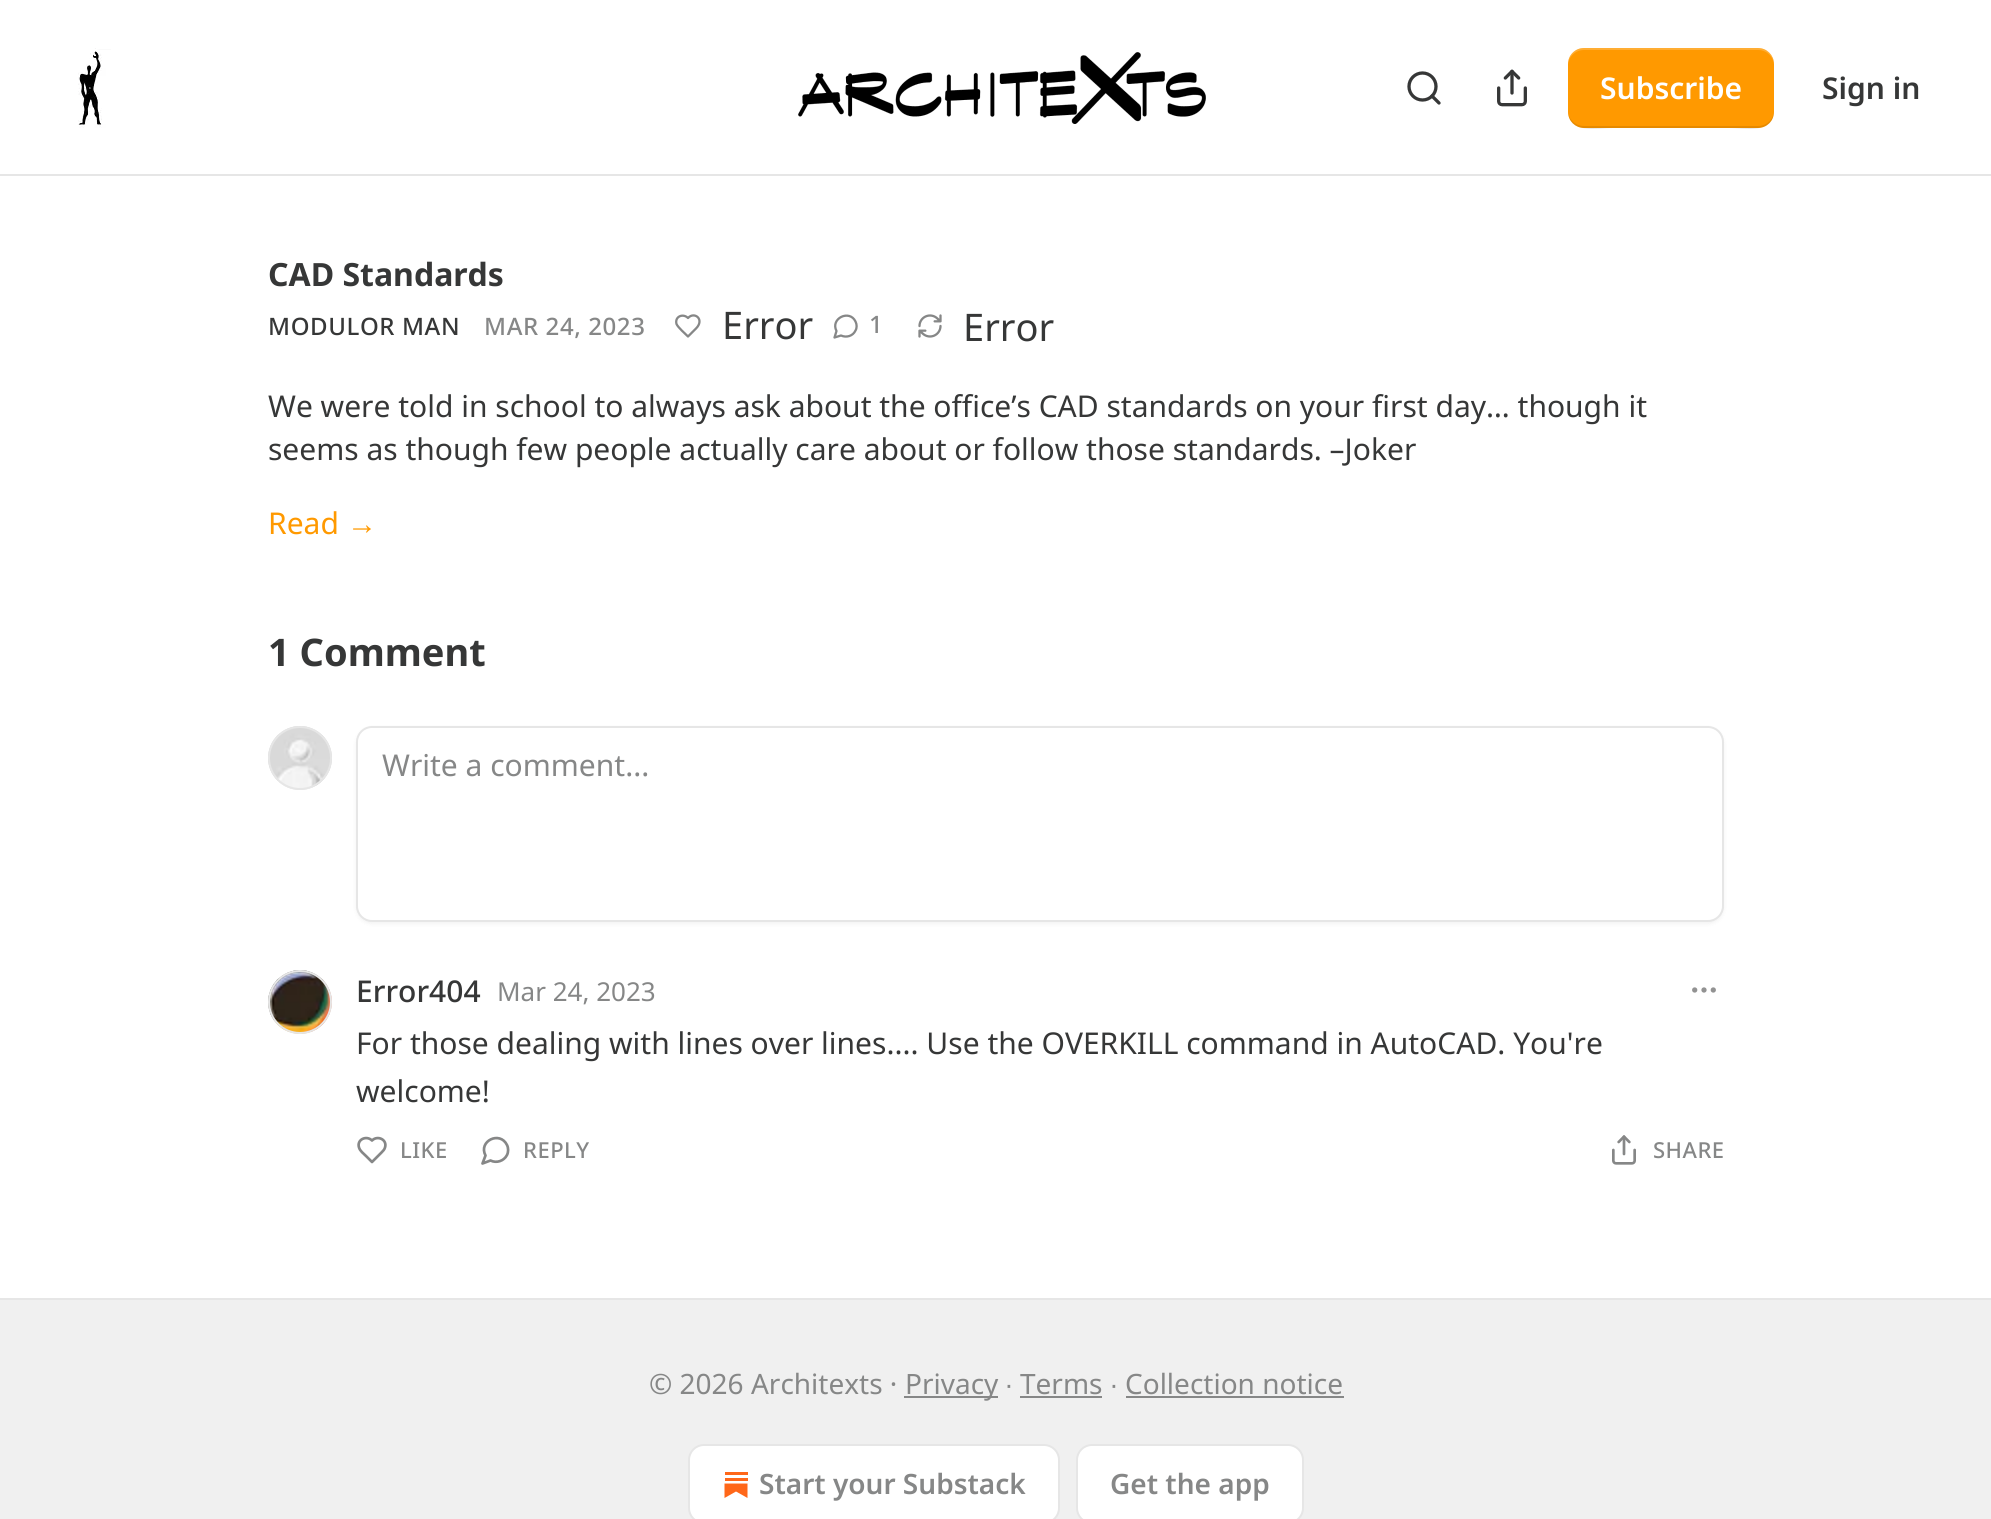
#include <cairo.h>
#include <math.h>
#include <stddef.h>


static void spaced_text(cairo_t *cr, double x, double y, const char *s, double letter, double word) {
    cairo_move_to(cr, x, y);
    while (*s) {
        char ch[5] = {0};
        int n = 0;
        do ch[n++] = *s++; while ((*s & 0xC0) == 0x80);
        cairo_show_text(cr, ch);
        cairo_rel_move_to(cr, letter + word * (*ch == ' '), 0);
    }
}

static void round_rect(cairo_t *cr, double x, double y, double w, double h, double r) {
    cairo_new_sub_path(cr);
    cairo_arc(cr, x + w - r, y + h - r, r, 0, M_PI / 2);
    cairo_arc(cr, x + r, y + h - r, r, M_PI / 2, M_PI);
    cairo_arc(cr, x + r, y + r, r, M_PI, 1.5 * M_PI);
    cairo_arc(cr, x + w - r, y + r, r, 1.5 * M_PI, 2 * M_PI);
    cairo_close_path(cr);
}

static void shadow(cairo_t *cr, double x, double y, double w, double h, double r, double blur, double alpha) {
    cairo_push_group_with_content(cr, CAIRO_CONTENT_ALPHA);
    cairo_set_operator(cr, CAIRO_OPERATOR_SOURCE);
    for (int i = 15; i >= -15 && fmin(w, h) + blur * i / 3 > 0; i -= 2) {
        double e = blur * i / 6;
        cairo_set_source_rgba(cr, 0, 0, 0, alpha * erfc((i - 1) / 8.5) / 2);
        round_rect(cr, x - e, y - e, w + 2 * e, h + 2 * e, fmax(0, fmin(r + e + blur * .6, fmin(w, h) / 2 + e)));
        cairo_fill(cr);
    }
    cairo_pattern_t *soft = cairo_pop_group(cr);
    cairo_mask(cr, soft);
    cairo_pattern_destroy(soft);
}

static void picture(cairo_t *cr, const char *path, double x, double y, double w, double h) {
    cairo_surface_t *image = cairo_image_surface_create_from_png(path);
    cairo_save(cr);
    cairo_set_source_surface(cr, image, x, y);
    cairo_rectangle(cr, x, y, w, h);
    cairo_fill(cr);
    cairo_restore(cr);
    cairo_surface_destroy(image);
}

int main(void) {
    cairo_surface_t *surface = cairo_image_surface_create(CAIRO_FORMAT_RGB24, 1991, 1519);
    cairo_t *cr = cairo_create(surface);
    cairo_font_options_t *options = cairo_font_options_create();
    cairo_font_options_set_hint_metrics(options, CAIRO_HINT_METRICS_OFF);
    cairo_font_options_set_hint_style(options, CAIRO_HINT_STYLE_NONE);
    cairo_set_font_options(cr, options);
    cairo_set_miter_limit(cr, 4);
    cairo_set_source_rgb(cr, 1, 1, 1);
    cairo_paint(cr);
    cairo_set_source_rgb(cr, 0.902, 0.902, 0.902);
    cairo_rectangle(cr, 0, 174, 1991, 2);
    cairo_fill(cr);
    picture(cr, "img1.png", 78, 48, 33, 80);
    picture(cr, "img2.png", 798, 52, 408, 72);
    cairo_arc(cr, 1422.5, 86.5, 13.5, 0, 2 * M_PI);
    cairo_set_source_rgb(cr, 0.212, 0.216, 0.216);
    cairo_set_line_width(cr, 3.3);
    cairo_stroke(cr);
    cairo_new_path(cr);
    cairo_move_to(cr, 1439, 103);
    cairo_line_to(cr, 1432, 96);
    cairo_set_line_cap(cr, CAIRO_LINE_CAP_ROUND);
    cairo_set_line_join(cr, CAIRO_LINE_JOIN_ROUND);
    cairo_stroke(cr);
    picture(cr, "img3.png", 1497, 69, 30, 38);
    cairo_set_source_rgb(cr, 1, 0.6, 0);
    round_rect(cr, 1568, 48, 206, 80, 16);
    cairo_fill(cr);
    cairo_set_source_rgba(cr, 0, 0, 0, 0.1);
    cairo_new_path(cr);
    cairo_move_to(cr, 1568, 110);
    cairo_curve_to(cr, 1568, 135, 1597, 128, 1613, 128);
    cairo_line_to(cr, 1729, 128);
    cairo_curve_to(cr, 1745, 128, 1774, 135, 1774, 110);
    cairo_curve_to(cr, 1774, 119, 1767, 126, 1758, 126);
    cairo_line_to(cr, 1584, 126);
    cairo_curve_to(cr, 1575, 126, 1568, 119, 1568, 110);
    cairo_close_path(cr);
    cairo_fill(cr);
    cairo_set_source_rgba(cr, 1, 1, 1, 0.2);
    cairo_new_path(cr);
    cairo_move_to(cr, 1584, 50);
    cairo_line_to(cr, 1758, 50);
    cairo_curve_to(cr, 1767, 50, 1774, 57, 1774, 66);
    cairo_curve_to(cr, 1774, 41, 1745, 48, 1729, 48);
    cairo_line_to(cr, 1613, 48);
    cairo_curve_to(cr, 1597, 48, 1568, 41, 1568, 66);
    cairo_curve_to(cr, 1568, 57, 1575, 50, 1584, 50);
    cairo_close_path(cr);
    cairo_fill(cr);
    cairo_select_font_face(cr, "Noto Sans SemiBold", CAIRO_FONT_SLANT_NORMAL, CAIRO_FONT_WEIGHT_NORMAL);
    cairo_set_font_size(cr, 30);
    cairo_set_source_rgb(cr, 1, 1, 1);
    cairo_move_to(cr, 1600, 99);
    cairo_show_text(cr, "Subscribe");
    cairo_set_source_rgb(cr, 0.212, 0.216, 0.216);
    cairo_move_to(cr, 1822, 99);
    cairo_show_text(cr, "Sign in");
    cairo_select_font_face(cr, "Noto Sans", CAIRO_FONT_SLANT_NORMAL, CAIRO_FONT_WEIGHT_BOLD);
    cairo_set_font_size(cr, 32);
    cairo_move_to(cr, 268, 286);
    cairo_show_text(cr, "CAD Standards");
    cairo_select_font_face(cr, "Noto Sans Medium", CAIRO_FONT_SLANT_NORMAL, CAIRO_FONT_WEIGHT_NORMAL);
    cairo_set_font_size(cr, 24);
    spaced_text(cr, 268, 335, "MODULOR MAN", 0.6, 0);
    cairo_set_source_rgb(cr, 0.525, 0.529, 0.529);
    spaced_text(cr, 484, 335, "MAR 24, 2023", 0.6, 0);
    cairo_new_path(cr);
    cairo_move_to(cr, 696, 328.5);
    cairo_curve_to(cr, 705, 319.5, 694.5, 311, 688, 318);
    cairo_curve_to(cr, 683, 313, 674.5, 316.5, 676.5, 324);
    cairo_curve_to(cr, 678, 327.5, 685.5, 334, 688, 336.5);
    cairo_close_path(cr);
    cairo_set_line_width(cr, 2.3);
    cairo_stroke(cr);
    cairo_select_font_face(cr, "Noto Sans", CAIRO_FONT_SLANT_NORMAL, CAIRO_FONT_WEIGHT_NORMAL);
    cairo_set_font_size(cr, 38);
    cairo_set_source_rgb(cr, 0.212, 0.216, 0.216);
    cairo_move_to(cr, 722, 339);
    cairo_show_text(cr, "Error");
    cairo_new_path(cr);
    cairo_move_to(cr, 841, 335.5);
    cairo_curve_to(cr, 846.5, 338, 853, 336, 855.5, 330.5);
    cairo_curve_to(cr, 857, 328, 857, 324.5, 855.5, 321.5);
    cairo_curve_to(cr, 849.5, 309, 830, 318.5, 836.5, 331);
    cairo_line_to(cr, 834.5, 337.5);
    cairo_close_path(cr);
    cairo_set_source_rgb(cr, 0.525, 0.529, 0.529);
    cairo_stroke(cr);
    cairo_select_font_face(cr, "Noto Sans Medium", CAIRO_FONT_SLANT_NORMAL, CAIRO_FONT_WEIGHT_NORMAL);
    cairo_set_font_size(cr, 24);
    spaced_text(cr, 869, 333, "1", 0.6, 0);
    picture(cr, "img4.png", 918, 314, 24, 24);
    cairo_select_font_face(cr, "Noto Sans", CAIRO_FONT_SLANT_NORMAL, CAIRO_FONT_WEIGHT_NORMAL);
    cairo_set_font_size(cr, 38);
    cairo_set_source_rgb(cr, 0.212, 0.216, 0.216);
    cairo_move_to(cr, 963, 341);
    cairo_show_text(cr, "Error");
    cairo_set_font_size(cr, 30);
    cairo_move_to(cr, 268, 417);
    cairo_show_text(cr, "We were told in school to always ask about the office’s CAD standards on your first day… though it");
    cairo_move_to(cr, 268, 460);
    cairo_show_text(cr, "seems as though few people actually care about or follow those standards. –Joker");
    cairo_set_source_rgb(cr, 1, 0.6, 0);
    cairo_move_to(cr, 268, 534);
    cairo_show_text(cr, "Read");
    cairo_select_font_face(cr, "Liberation Sans", CAIRO_FONT_SLANT_NORMAL, CAIRO_FONT_WEIGHT_NORMAL);
    cairo_move_to(cr, 347, 534);
    cairo_show_text(cr, "→");
    cairo_select_font_face(cr, "Noto Sans", CAIRO_FONT_SLANT_NORMAL, CAIRO_FONT_WEIGHT_BOLD);
    cairo_set_font_size(cr, 38);
    cairo_set_source_rgb(cr, 0.212, 0.216, 0.216);
    cairo_move_to(cr, 268, 666);
    cairo_show_text(cr, "1 Comment");
    cairo_new_path(cr);
    cairo_arc(cr, 300, 758, 31, 0, 2 * M_PI);
    cairo_set_source_rgb(cr, 0.902, 0.902, 0.902);
    cairo_set_line_width(cr, 2);
    cairo_set_line_cap(cr, CAIRO_LINE_CAP_BUTT);
    cairo_set_line_join(cr, CAIRO_LINE_JOIN_MITER);
    cairo_stroke(cr);
    picture(cr, "img5.png", 268, 726, 64, 63);
    cairo_arc(cr, 300, 758, 31, 0, 2 * M_PI);
    cairo_stroke(cr);
    cairo_set_source_rgb(cr, 0, 0, 0);
    shadow(cr, 356, 728, 1368, 196, 16, 2, 0.05);
    cairo_set_source_rgb(cr, 1, 1, 1);
    round_rect(cr, 357, 727, 1366, 194, 15);
    cairo_fill_preserve(cr);
    cairo_set_source_rgb(cr, 0.902, 0.902, 0.902);
    cairo_stroke(cr);
    cairo_select_font_face(cr, "Noto Sans", CAIRO_FONT_SLANT_NORMAL, CAIRO_FONT_WEIGHT_NORMAL);
    cairo_set_font_size(cr, 30);
    cairo_set_source_rgb(cr, 0.525, 0.529, 0.529);
    cairo_move_to(cr, 382, 776);
    cairo_show_text(cr, "Write a comment...");
    cairo_new_path(cr);
    cairo_arc(cr, 300, 1002, 31, 0, 2 * M_PI);
    cairo_set_source_rgb(cr, 0.902, 0.902, 0.902);
    cairo_stroke(cr);
    picture(cr, "img6.png", 268, 970, 64, 64);
    cairo_arc(cr, 300, 1002, 31, 0, 2 * M_PI);
    cairo_stroke(cr);
    cairo_select_font_face(cr, "Noto Sans Medium", CAIRO_FONT_SLANT_NORMAL, CAIRO_FONT_WEIGHT_NORMAL);
    cairo_set_source_rgb(cr, 0.212, 0.216, 0.216);
    cairo_move_to(cr, 356, 1002);
    cairo_show_text(cr, "Error404");
    cairo_select_font_face(cr, "Noto Sans", CAIRO_FONT_SLANT_NORMAL, CAIRO_FONT_WEIGHT_NORMAL);
    cairo_set_font_size(cr, 26);
    cairo_set_source_rgb(cr, 0.525, 0.529, 0.529);
    cairo_move_to(cr, 497, 1001);
    cairo_show_text(cr, "Mar 24, 2023");
    cairo_new_path(cr);
    cairo_arc(cr, 1704, 990, 1.3, 0, 2 * M_PI);
    cairo_set_source_rgb(cr, 0.573, 0.573, 0.573);
    cairo_set_line_width(cr, 2.7);
    cairo_stroke(cr);
    cairo_arc(cr, 1713.3, 990, 1.3, 0, 2 * M_PI);
    cairo_stroke(cr);
    cairo_arc(cr, 1694.7, 990, 1.3, 0, 2 * M_PI);
    cairo_stroke(cr);
    cairo_set_font_size(cr, 30);
    cairo_set_source_rgb(cr, 0.212, 0.216, 0.216);
    cairo_move_to(cr, 356, 1054);
    cairo_show_text(cr, "For those dealing with lines over lines.... Use the OVERKILL command in AutoCAD. You're");
    cairo_move_to(cr, 356, 1102);
    cairo_show_text(cr, "welcome!");
    cairo_new_path(cr);
    cairo_move_to(cr, 381.5, 1152.5);
    cairo_curve_to(cr, 383, 1151, 384.5, 1149.5, 385, 1147.5);
    cairo_curve_to(cr, 387.5, 1139.5, 377.5, 1135, 372, 1140.5);
    cairo_curve_to(cr, 366.5, 1135, 356.5, 1139.5, 359, 1147.5);
    cairo_curve_to(cr, 360, 1151, 363.5, 1153.5, 366, 1156);
    cairo_line_to(cr, 372, 1162);
    cairo_close_path(cr);
    cairo_set_source_rgb(cr, 0.525, 0.529, 0.529);
    cairo_set_line_cap(cr, CAIRO_LINE_CAP_ROUND);
    cairo_set_line_join(cr, CAIRO_LINE_JOIN_ROUND);
    cairo_stroke(cr);
    cairo_select_font_face(cr, "Noto Sans Medium", CAIRO_FONT_SLANT_NORMAL, CAIRO_FONT_WEIGHT_NORMAL);
    cairo_set_font_size(cr, 22);
    spaced_text(cr, 400, 1158, "LIKE", 0.5, 0);
    cairo_new_path(cr);
    cairo_move_to(cr, 490.5, 1160.5);
    cairo_curve_to(cr, 496.5, 1163.5, 504, 1161, 507, 1155);
    cairo_curve_to(cr, 508.5, 1152, 508.5, 1148, 507, 1145);
    cairo_curve_to(cr, 500, 1130.5, 478, 1141, 485.5, 1155.5);
    cairo_line_to(cr, 482.5, 1163.5);
    cairo_close_path(cr);
    cairo_stroke(cr);
    spaced_text(cr, 523, 1158, "REPLY", 0.5, 0);
    picture(cr, "img7.png", 1612, 1135, 24, 30);
    spaced_text(cr, 1653, 1158, "SHARE", 0.5, 0);
    cairo_set_source_rgb(cr, 0.941, 0.941, 0.941);
    cairo_rectangle(cr, 0, 1300, 1991, 219);
    cairo_fill(cr);
    cairo_set_source_rgb(cr, 0.902, 0.902, 0.902);
    cairo_rectangle(cr, 0, 1298, 1991, 2);
    cairo_fill(cr);
    cairo_select_font_face(cr, "Noto Sans", CAIRO_FONT_SLANT_NORMAL, CAIRO_FONT_WEIGHT_NORMAL);
    cairo_set_font_size(cr, 28);
    cairo_set_source_rgb(cr, 0.525, 0.529, 0.529);
    cairo_move_to(cr, 649, 1394);
    cairo_show_text(cr, "© 2026 Architexts ·");
    cairo_rectangle(cr, 904, 1396, 94, 2);
    cairo_fill(cr);
    cairo_move_to(cr, 905, 1394);
    cairo_show_text(cr, "Privacy");
    cairo_select_font_face(cr, "Liberation Sans", CAIRO_FONT_SLANT_NORMAL, CAIRO_FONT_WEIGHT_NORMAL);
    cairo_move_to(cr, 1005, 1394);
    cairo_show_text(cr, "∙");
    cairo_select_font_face(cr, "Noto Sans", CAIRO_FONT_SLANT_NORMAL, CAIRO_FONT_WEIGHT_NORMAL);
    cairo_move_to(cr, 1020, 1394);
    cairo_show_text(cr, "Terms");
    cairo_rectangle(cr, 1020, 1396, 82, 2);
    cairo_fill(cr);
    cairo_select_font_face(cr, "Liberation Sans", CAIRO_FONT_SLANT_NORMAL, CAIRO_FONT_WEIGHT_NORMAL);
    cairo_move_to(cr, 1110, 1394);
    cairo_show_text(cr, "∙");
    cairo_select_font_face(cr, "Noto Sans", CAIRO_FONT_SLANT_NORMAL, CAIRO_FONT_WEIGHT_NORMAL);
    cairo_move_to(cr, 1125, 1394);
    cairo_show_text(cr, "Collection notice");
    cairo_rectangle(cr, 1126, 1396, 218, 2);
    cairo_fill(cr);
    cairo_set_source_rgb(cr, 1, 1, 1);
    round_rect(cr, 689, 1445, 370, 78, 15);
    cairo_fill_preserve(cr);
    cairo_set_source_rgb(cr, 0.902, 0.902, 0.902);
    cairo_set_line_width(cr, 2);
    cairo_set_line_cap(cr, CAIRO_LINE_CAP_BUTT);
    cairo_set_line_join(cr, CAIRO_LINE_JOIN_MITER);
    cairo_stroke(cr);
    cairo_set_source_rgb(cr, 1, 0.404, 0.098);
    cairo_rectangle(cr, 725, 1478, 23, 3);
    cairo_fill(cr);
    cairo_new_path(cr);
    cairo_move_to(cr, 724.5, 1483.5);
    cairo_line_to(cr, 724.5, 1498);
    cairo_line_to(cr, 736, 1491.5);
    cairo_line_to(cr, 747.5, 1498);
    cairo_line_to(cr, 747.5, 1483.5);
    cairo_close_path(cr);
    cairo_fill(cr);
    cairo_rectangle(cr, 725, 1472, 23, 3);
    cairo_fill(cr);
    cairo_select_font_face(cr, "Noto Sans SemiBold", CAIRO_FONT_SLANT_NORMAL, CAIRO_FONT_WEIGHT_NORMAL);
    cairo_set_source_rgb(cr, 0.525, 0.529, 0.529);
    cairo_move_to(cr, 759, 1494);
    cairo_show_text(cr, "Start your Substack");
    cairo_set_source_rgb(cr, 1, 1, 1);
    round_rect(cr, 1077, 1445, 226, 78, 15);
    cairo_fill_preserve(cr);
    cairo_set_source_rgb(cr, 0.902, 0.902, 0.902);
    cairo_stroke(cr);
    cairo_set_source_rgb(cr, 0.525, 0.529, 0.529);
    cairo_move_to(cr, 1110, 1494);
    cairo_show_text(cr, "Get the app");
    cairo_surface_write_to_png(surface, "page.png");
    cairo_font_options_destroy(options);
    cairo_destroy(cr);
    cairo_surface_destroy(surface);
    return 0;
}
